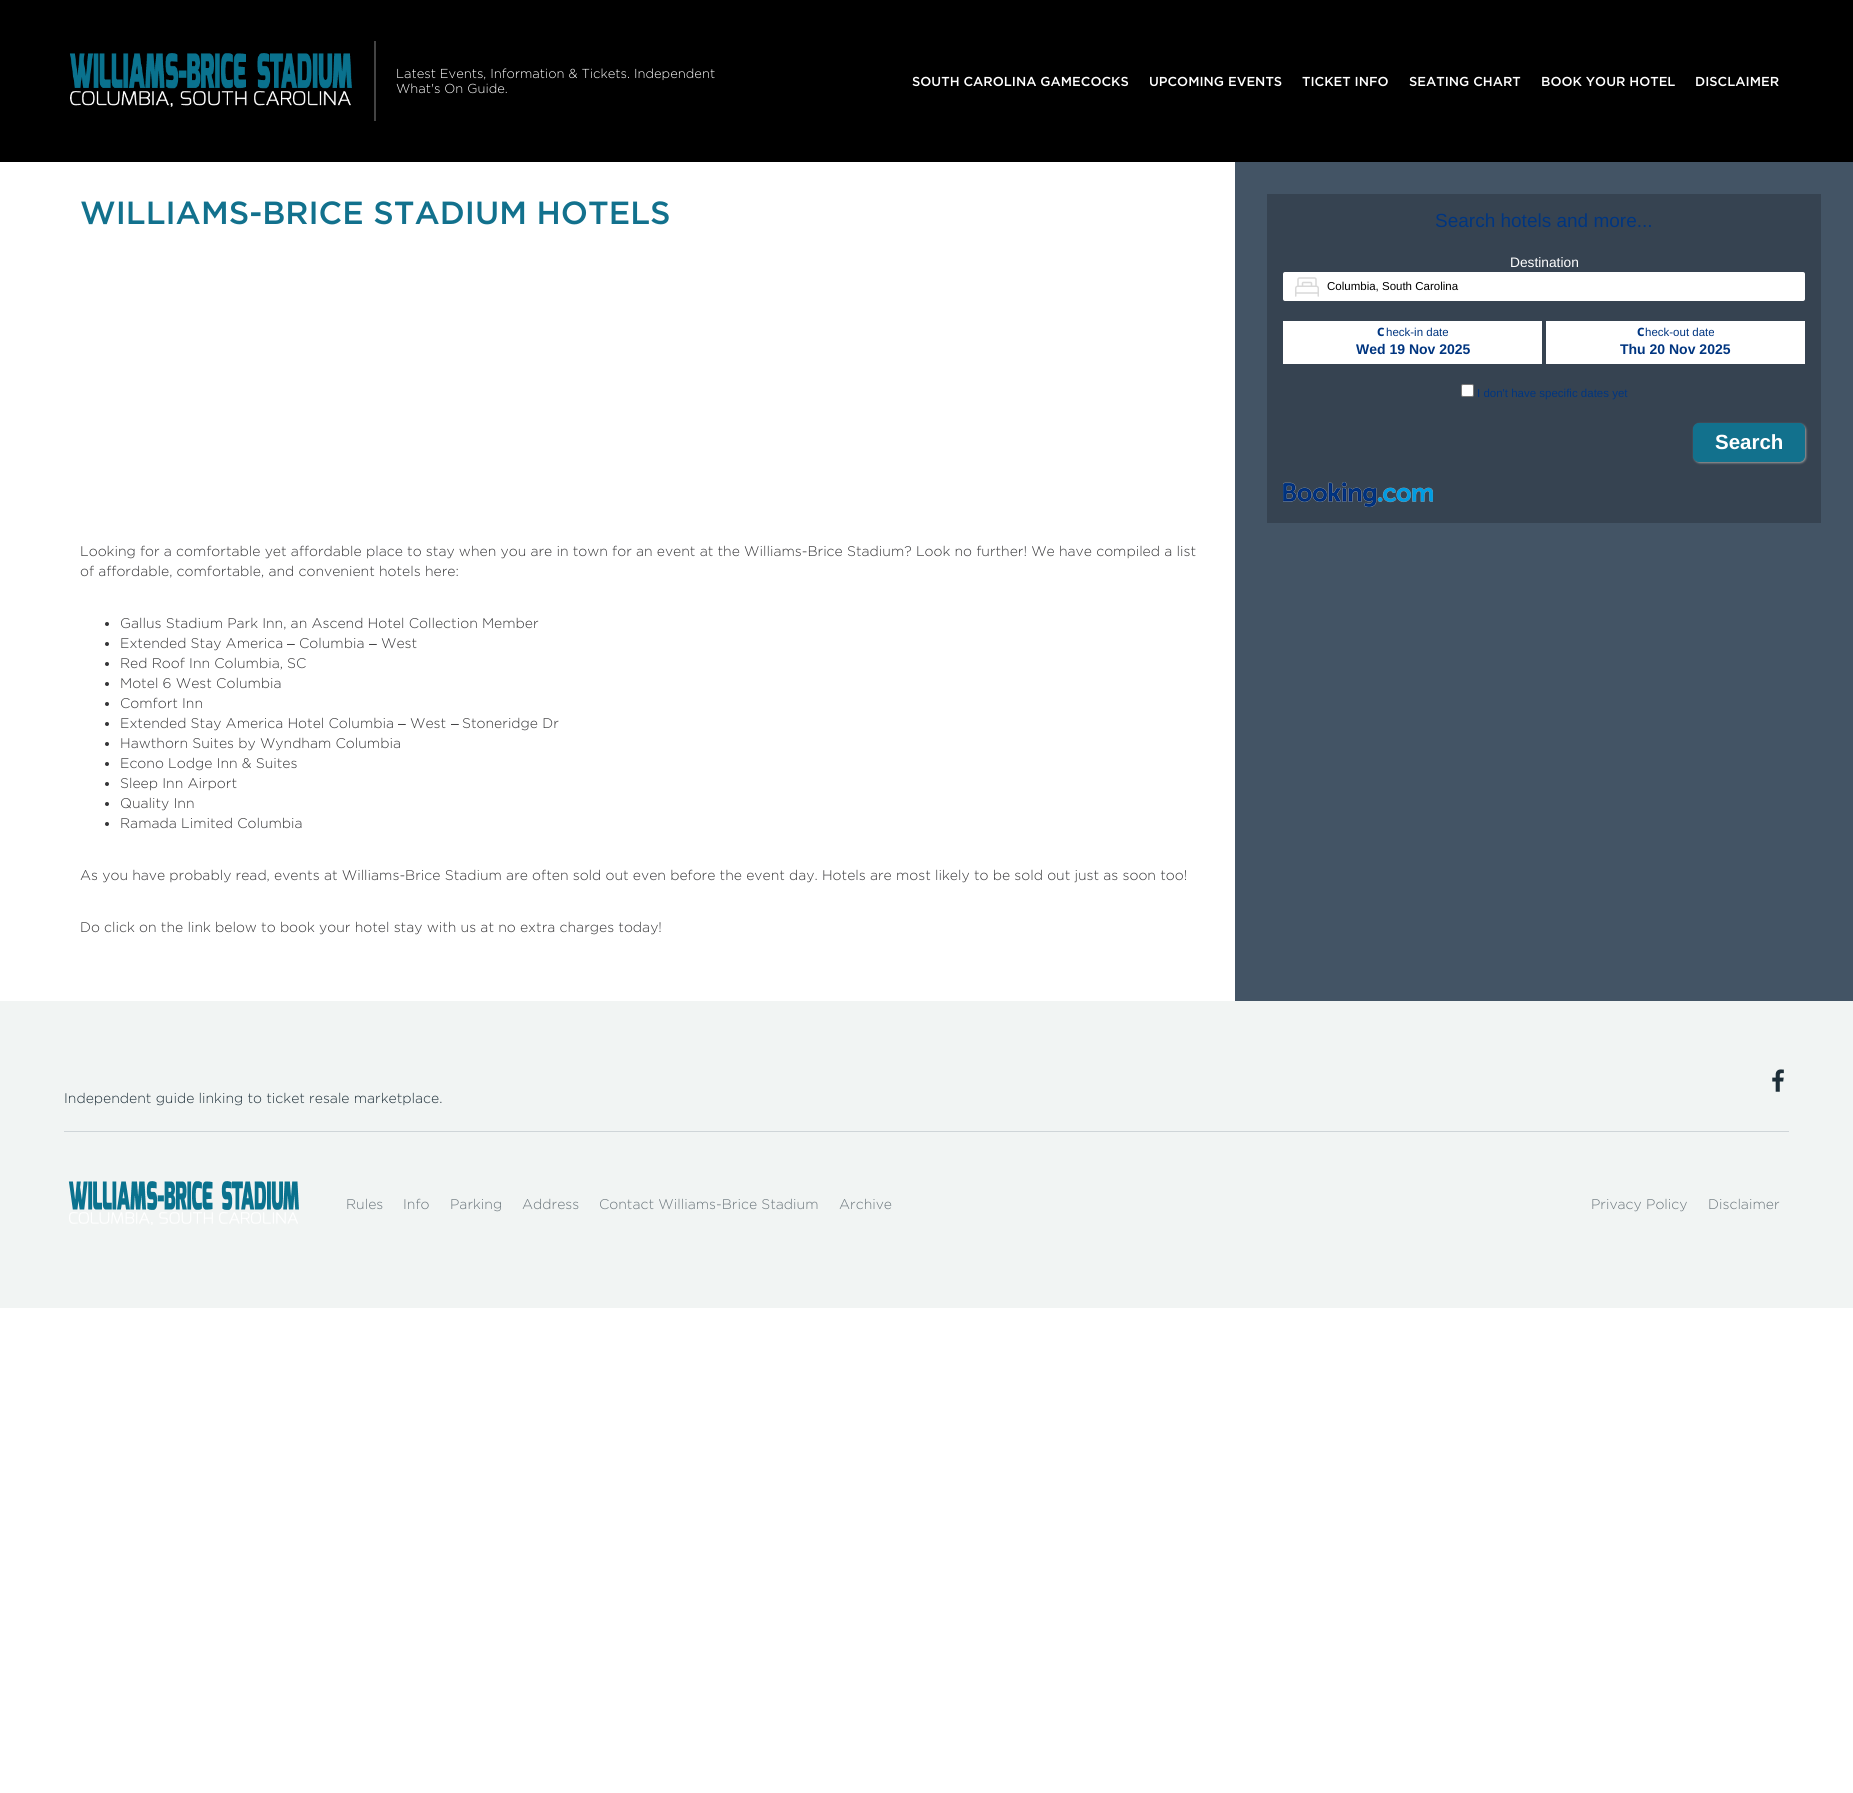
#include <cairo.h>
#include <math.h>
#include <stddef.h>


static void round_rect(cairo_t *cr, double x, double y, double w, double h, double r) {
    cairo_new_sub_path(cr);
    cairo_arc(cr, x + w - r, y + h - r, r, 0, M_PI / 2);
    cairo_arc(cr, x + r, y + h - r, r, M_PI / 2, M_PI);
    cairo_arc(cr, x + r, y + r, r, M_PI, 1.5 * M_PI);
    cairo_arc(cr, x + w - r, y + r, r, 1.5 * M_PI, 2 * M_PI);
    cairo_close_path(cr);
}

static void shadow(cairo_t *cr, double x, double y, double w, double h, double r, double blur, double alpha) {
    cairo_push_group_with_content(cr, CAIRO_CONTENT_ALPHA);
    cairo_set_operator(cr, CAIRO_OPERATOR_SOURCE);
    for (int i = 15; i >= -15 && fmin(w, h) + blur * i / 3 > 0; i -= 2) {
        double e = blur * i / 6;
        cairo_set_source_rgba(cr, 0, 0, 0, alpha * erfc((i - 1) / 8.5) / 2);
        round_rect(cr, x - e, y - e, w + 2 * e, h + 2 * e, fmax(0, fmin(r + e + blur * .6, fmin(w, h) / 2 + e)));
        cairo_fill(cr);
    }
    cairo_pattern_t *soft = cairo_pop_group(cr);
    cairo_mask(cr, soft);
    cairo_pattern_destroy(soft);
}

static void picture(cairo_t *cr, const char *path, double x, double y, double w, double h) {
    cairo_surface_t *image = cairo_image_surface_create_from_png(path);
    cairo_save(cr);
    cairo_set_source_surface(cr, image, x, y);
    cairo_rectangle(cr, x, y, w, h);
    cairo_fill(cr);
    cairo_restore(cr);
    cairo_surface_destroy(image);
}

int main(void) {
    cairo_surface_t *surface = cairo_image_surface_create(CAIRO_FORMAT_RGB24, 1853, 1793);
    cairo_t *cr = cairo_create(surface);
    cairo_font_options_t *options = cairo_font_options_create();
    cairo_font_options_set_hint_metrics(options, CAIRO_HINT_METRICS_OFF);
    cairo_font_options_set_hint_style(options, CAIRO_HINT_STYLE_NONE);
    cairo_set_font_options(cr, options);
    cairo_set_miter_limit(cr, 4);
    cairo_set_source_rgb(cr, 1, 1, 1);
    cairo_paint(cr);
    cairo_set_source_rgb(cr, 0, 0, 0);
    cairo_rectangle(cr, 0, 0, 1853, 162);
    cairo_fill(cr);
    picture(cr, "img1.png", 69, 53, 283, 54);
    cairo_set_source_rgb(cr, 0.263, 0.263, 0.263);
    cairo_rectangle(cr, 374, 41, 2, 80);
    cairo_fill(cr);
    cairo_select_font_face(cr, "Gotham Light", CAIRO_FONT_SLANT_NORMAL, CAIRO_FONT_WEIGHT_NORMAL);
    cairo_set_font_size(cr, 13);
    cairo_set_source_rgb(cr, 1, 1, 1);
    cairo_move_to(cr, 396, 78);
    cairo_show_text(cr, "Latest Events, Information & Tickets. Independent");
    cairo_move_to(cr, 396, 93);
    cairo_show_text(cr, "What's On Guide.");
    cairo_select_font_face(cr, "Gotham Medium", CAIRO_FONT_SLANT_NORMAL, CAIRO_FONT_WEIGHT_NORMAL);
    cairo_move_to(cr, 912, 86);
    cairo_show_text(cr, "SOUTH CAROLINA GAMECOCKS");
    cairo_move_to(cr, 1149, 86);
    cairo_show_text(cr, "UPCOMING EVENTS");
    cairo_move_to(cr, 1302, 86);
    cairo_show_text(cr, "TICKET INFO");
    cairo_move_to(cr, 1409, 86);
    cairo_show_text(cr, "SEATING CHART");
    cairo_move_to(cr, 1541, 86);
    cairo_show_text(cr, "BOOK YOUR HOTEL");
    cairo_move_to(cr, 1695, 86);
    cairo_show_text(cr, "DISCLAIMER");
    cairo_set_font_size(cr, 32);
    cairo_set_source_rgb(cr, 0.071, 0.443, 0.553);
    cairo_move_to(cr, 80, 224);
    cairo_show_text(cr, "WILLIAMS-BRICE STADIUM HOTELS");
    cairo_select_font_face(cr, "Gotham Light", CAIRO_FONT_SLANT_NORMAL, CAIRO_FONT_WEIGHT_NORMAL);
    cairo_set_font_size(cr, 14);
    cairo_set_source_rgb(cr, 0.208, 0.208, 0.216);
    cairo_move_to(cr, 80, 556);
    cairo_show_text(cr, "Looking for a comfortable yet affordable place to stay when you are in town for an event at the Williams-Brice Stadium? Look no further! We have compiled a list");
    cairo_move_to(cr, 80, 576);
    cairo_show_text(cr, "of affordable, comfortable, and convenient hotels here:");
    cairo_new_path(cr);
    cairo_arc(cr, 107, 624, 2, 0, 2 * M_PI);
    cairo_fill(cr);
    cairo_move_to(cr, 120, 628);
    cairo_show_text(cr, "Gallus Stadium Park Inn, an Ascend Hotel Collection Member");
    cairo_new_path(cr);
    cairo_arc(cr, 107, 644, 2, 0, 2 * M_PI);
    cairo_fill(cr);
    cairo_move_to(cr, 120, 648);
    cairo_show_text(cr, "Extended Stay America");
    cairo_select_font_face(cr, "Liberation Sans", CAIRO_FONT_SLANT_NORMAL, CAIRO_FONT_WEIGHT_NORMAL);
    cairo_move_to(cr, 287, 648);
    cairo_show_text(cr, "–");
    cairo_select_font_face(cr, "Gotham Light", CAIRO_FONT_SLANT_NORMAL, CAIRO_FONT_WEIGHT_NORMAL);
    cairo_move_to(cr, 299, 648);
    cairo_show_text(cr, "Columbia");
    cairo_select_font_face(cr, "Liberation Sans", CAIRO_FONT_SLANT_NORMAL, CAIRO_FONT_WEIGHT_NORMAL);
    cairo_move_to(cr, 369, 648);
    cairo_show_text(cr, "–");
    cairo_select_font_face(cr, "Gotham Light", CAIRO_FONT_SLANT_NORMAL, CAIRO_FONT_WEIGHT_NORMAL);
    cairo_move_to(cr, 381, 648);
    cairo_show_text(cr, "West");
    cairo_new_path(cr);
    cairo_arc(cr, 107, 664, 2, 0, 2 * M_PI);
    cairo_fill(cr);
    cairo_move_to(cr, 120, 668);
    cairo_show_text(cr, "Red Roof Inn Columbia, SC");
    cairo_new_path(cr);
    cairo_arc(cr, 107, 684, 2, 0, 2 * M_PI);
    cairo_fill(cr);
    cairo_move_to(cr, 120, 688);
    cairo_show_text(cr, "Motel 6 West Columbia");
    cairo_new_path(cr);
    cairo_arc(cr, 107, 704, 2, 0, 2 * M_PI);
    cairo_fill(cr);
    cairo_move_to(cr, 120, 708);
    cairo_show_text(cr, "Comfort Inn");
    cairo_new_path(cr);
    cairo_arc(cr, 107, 724, 2, 0, 2 * M_PI);
    cairo_fill(cr);
    cairo_move_to(cr, 120, 728);
    cairo_show_text(cr, "Extended Stay America Hotel Columbia");
    cairo_select_font_face(cr, "Liberation Sans", CAIRO_FONT_SLANT_NORMAL, CAIRO_FONT_WEIGHT_NORMAL);
    cairo_move_to(cr, 398, 728);
    cairo_show_text(cr, "–");
    cairo_select_font_face(cr, "Gotham Light", CAIRO_FONT_SLANT_NORMAL, CAIRO_FONT_WEIGHT_NORMAL);
    cairo_move_to(cr, 410, 728);
    cairo_show_text(cr, "West");
    cairo_select_font_face(cr, "Liberation Sans", CAIRO_FONT_SLANT_NORMAL, CAIRO_FONT_WEIGHT_NORMAL);
    cairo_move_to(cr, 451, 728);
    cairo_show_text(cr, "–");
    cairo_select_font_face(cr, "Gotham Light", CAIRO_FONT_SLANT_NORMAL, CAIRO_FONT_WEIGHT_NORMAL);
    cairo_move_to(cr, 462, 728);
    cairo_show_text(cr, "Stoneridge Dr");
    cairo_new_path(cr);
    cairo_arc(cr, 107, 744, 2, 0, 2 * M_PI);
    cairo_fill(cr);
    cairo_move_to(cr, 120, 748);
    cairo_show_text(cr, "Hawthorn Suites by Wyndham Columbia");
    cairo_new_path(cr);
    cairo_arc(cr, 107, 764, 2, 0, 2 * M_PI);
    cairo_fill(cr);
    cairo_move_to(cr, 120, 768);
    cairo_show_text(cr, "Econo Lodge Inn & Suites");
    cairo_new_path(cr);
    cairo_arc(cr, 107, 784, 2, 0, 2 * M_PI);
    cairo_fill(cr);
    cairo_move_to(cr, 120, 788);
    cairo_show_text(cr, "Sleep Inn Airport");
    cairo_new_path(cr);
    cairo_arc(cr, 107, 804, 2, 0, 2 * M_PI);
    cairo_fill(cr);
    cairo_move_to(cr, 120, 808);
    cairo_show_text(cr, "Quality Inn");
    cairo_new_path(cr);
    cairo_arc(cr, 107, 824, 2, 0, 2 * M_PI);
    cairo_fill(cr);
    cairo_move_to(cr, 120, 828);
    cairo_show_text(cr, "Ramada Limited Columbia");
    cairo_move_to(cr, 80, 880);
    cairo_show_text(cr, "As you have probably read, events at Williams-Brice Stadium are often sold out even before the event day. Hotels are most likely to be sold out just as soon too!");
    cairo_move_to(cr, 80, 932);
    cairo_show_text(cr, "Do click on the link below to book your hotel stay with us at no extra charges today!");
    cairo_set_source_rgb(cr, 0.263, 0.329, 0.396);
    cairo_rectangle(cr, 1235, 162, 618, 839);
    cairo_fill(cr);
    cairo_set_source_rgb(cr, 0.212, 0.263, 0.318);
    cairo_rectangle(cr, 1267, 194, 554, 329);
    cairo_fill(cr);
    cairo_select_font_face(cr, "Liberation Sans", CAIRO_FONT_SLANT_NORMAL, CAIRO_FONT_WEIGHT_NORMAL);
    cairo_set_font_size(cr, 19);
    cairo_set_source_rgb(cr, 0, 0.208, 0.502);
    cairo_move_to(cr, 1435, 227);
    cairo_show_text(cr, "Search hotels and more...");
    cairo_set_font_size(cr, 13.75);
    cairo_set_source_rgb(cr, 1, 1, 1);
    cairo_move_to(cr, 1510, 267);
    cairo_show_text(cr, "Destination");
    round_rect(cr, 1283, 272, 522, 29, 2);
    cairo_fill(cr);
    picture(cr, "img2.png", 1295, 277, 24, 20);
    cairo_set_font_size(cr, 11.5);
    cairo_set_source_rgb(cr, 0, 0, 0);
    cairo_move_to(cr, 1327, 290);
    cairo_show_text(cr, "Columbia, South Carolina");
    cairo_set_source_rgb(cr, 1, 1, 1);
    cairo_rectangle(cr, 1283, 321, 259, 43);
    cairo_fill(cr);
    cairo_select_font_face(cr, "Noto Sans ExtraBold", CAIRO_FONT_SLANT_NORMAL, CAIRO_FONT_WEIGHT_NORMAL);
    cairo_set_source_rgb(cr, 0, 0.208, 0.502);
    cairo_move_to(cr, 1377, 336);
    cairo_show_text(cr, "C");
    cairo_select_font_face(cr, "Liberation Sans", CAIRO_FONT_SLANT_NORMAL, CAIRO_FONT_WEIGHT_NORMAL);
    cairo_move_to(cr, 1386, 336);
    cairo_show_text(cr, "heck-in date");
    cairo_select_font_face(cr, "Liberation Sans", CAIRO_FONT_SLANT_NORMAL, CAIRO_FONT_WEIGHT_BOLD);
    cairo_set_font_size(cr, 14);
    cairo_move_to(cr, 1356, 354);
    cairo_show_text(cr, "Wed 19 Nov 2025");
    cairo_set_source_rgb(cr, 1, 1, 1);
    cairo_rectangle(cr, 1546, 321, 259, 43);
    cairo_fill(cr);
    cairo_select_font_face(cr, "Noto Sans ExtraBold", CAIRO_FONT_SLANT_NORMAL, CAIRO_FONT_WEIGHT_NORMAL);
    cairo_set_font_size(cr, 11.5);
    cairo_set_source_rgb(cr, 0, 0.208, 0.502);
    cairo_move_to(cr, 1637, 336);
    cairo_show_text(cr, "C");
    cairo_select_font_face(cr, "Liberation Sans", CAIRO_FONT_SLANT_NORMAL, CAIRO_FONT_WEIGHT_NORMAL);
    cairo_move_to(cr, 1645, 336);
    cairo_show_text(cr, "heck-out date");
    cairo_select_font_face(cr, "Liberation Sans", CAIRO_FONT_SLANT_NORMAL, CAIRO_FONT_WEIGHT_BOLD);
    cairo_set_font_size(cr, 14);
    cairo_move_to(cr, 1620, 354);
    cairo_show_text(cr, "Thu 20 Nov 2025");
    cairo_set_source_rgb(cr, 1, 1, 1);
    round_rect(cr, 1461.5, 384.5, 12, 12, 1.5);
    cairo_fill_preserve(cr);
    cairo_set_source_rgb(cr, 0.463, 0.463, 0.463);
    cairo_set_line_width(cr, 1);
    cairo_stroke(cr);
    cairo_select_font_face(cr, "Liberation Sans", CAIRO_FONT_SLANT_NORMAL, CAIRO_FONT_WEIGHT_NORMAL);
    cairo_set_font_size(cr, 11.5);
    cairo_set_source_rgb(cr, 0, 0.208, 0.502);
    cairo_move_to(cr, 1477, 397);
    cairo_show_text(cr, "I don't have specific dates yet");
    cairo_set_source_rgb(cr, 0.6, 0.6, 0.6);
    shadow(cr, 1694, 424, 112, 39, 6, 1, 1);
    cairo_set_source_rgb(cr, 0.071, 0.443, 0.553);
    round_rect(cr, 1693.5, 423.5, 111, 38, 5.5);
    cairo_fill_preserve(cr);
    cairo_stroke(cr);
    cairo_select_font_face(cr, "Liberation Sans", CAIRO_FONT_SLANT_NORMAL, CAIRO_FONT_WEIGHT_BOLD);
    cairo_set_font_size(cr, 20.5);
    cairo_set_source_rgb(cr, 1, 1, 1);
    cairo_move_to(cr, 1715, 449);
    cairo_show_text(cr, "Search");
    picture(cr, "img3.png", 1283, 482, 150, 25);
    cairo_set_source_rgb(cr, 0.945, 0.957, 0.953);
    cairo_rectangle(cr, 0, 1001, 1853, 307);
    cairo_fill(cr);
    cairo_set_source_rgb(cr, 0.812, 0.835, 0.847);
    cairo_rectangle(cr, 64, 1131, 1725, 1);
    cairo_fill(cr);
    picture(cr, "img4.png", 1772, 1069, 12, 23);
    cairo_select_font_face(cr, "Gotham Light", CAIRO_FONT_SLANT_NORMAL, CAIRO_FONT_WEIGHT_NORMAL);
    cairo_set_font_size(cr, 14);
    cairo_set_source_rgb(cr, 0.114, 0.18, 0.22);
    cairo_move_to(cr, 64, 1103);
    cairo_show_text(cr, "Independent guide linking to ticket resale marketplace.");
    picture(cr, "img5.png", 68, 1181, 231, 44);
    cairo_set_source_rgb(cr, 0.42, 0.463, 0.486);
    cairo_move_to(cr, 346, 1209);
    cairo_show_text(cr, "Rules");
    cairo_move_to(cr, 403, 1209);
    cairo_show_text(cr, "Info");
    cairo_move_to(cr, 450, 1209);
    cairo_show_text(cr, "Parking");
    cairo_move_to(cr, 522, 1209);
    cairo_show_text(cr, "Address");
    cairo_move_to(cr, 599, 1209);
    cairo_show_text(cr, "Contact Williams-Brice Stadium");
    cairo_move_to(cr, 839, 1209);
    cairo_show_text(cr, "Archive");
    cairo_move_to(cr, 1591, 1209);
    cairo_show_text(cr, "Privacy Policy");
    cairo_move_to(cr, 1708, 1209);
    cairo_show_text(cr, "Disclaimer");
    cairo_surface_write_to_png(surface, "page.png");
    cairo_font_options_destroy(options);
    cairo_destroy(cr);
    cairo_surface_destroy(surface);
    return 0;
}
